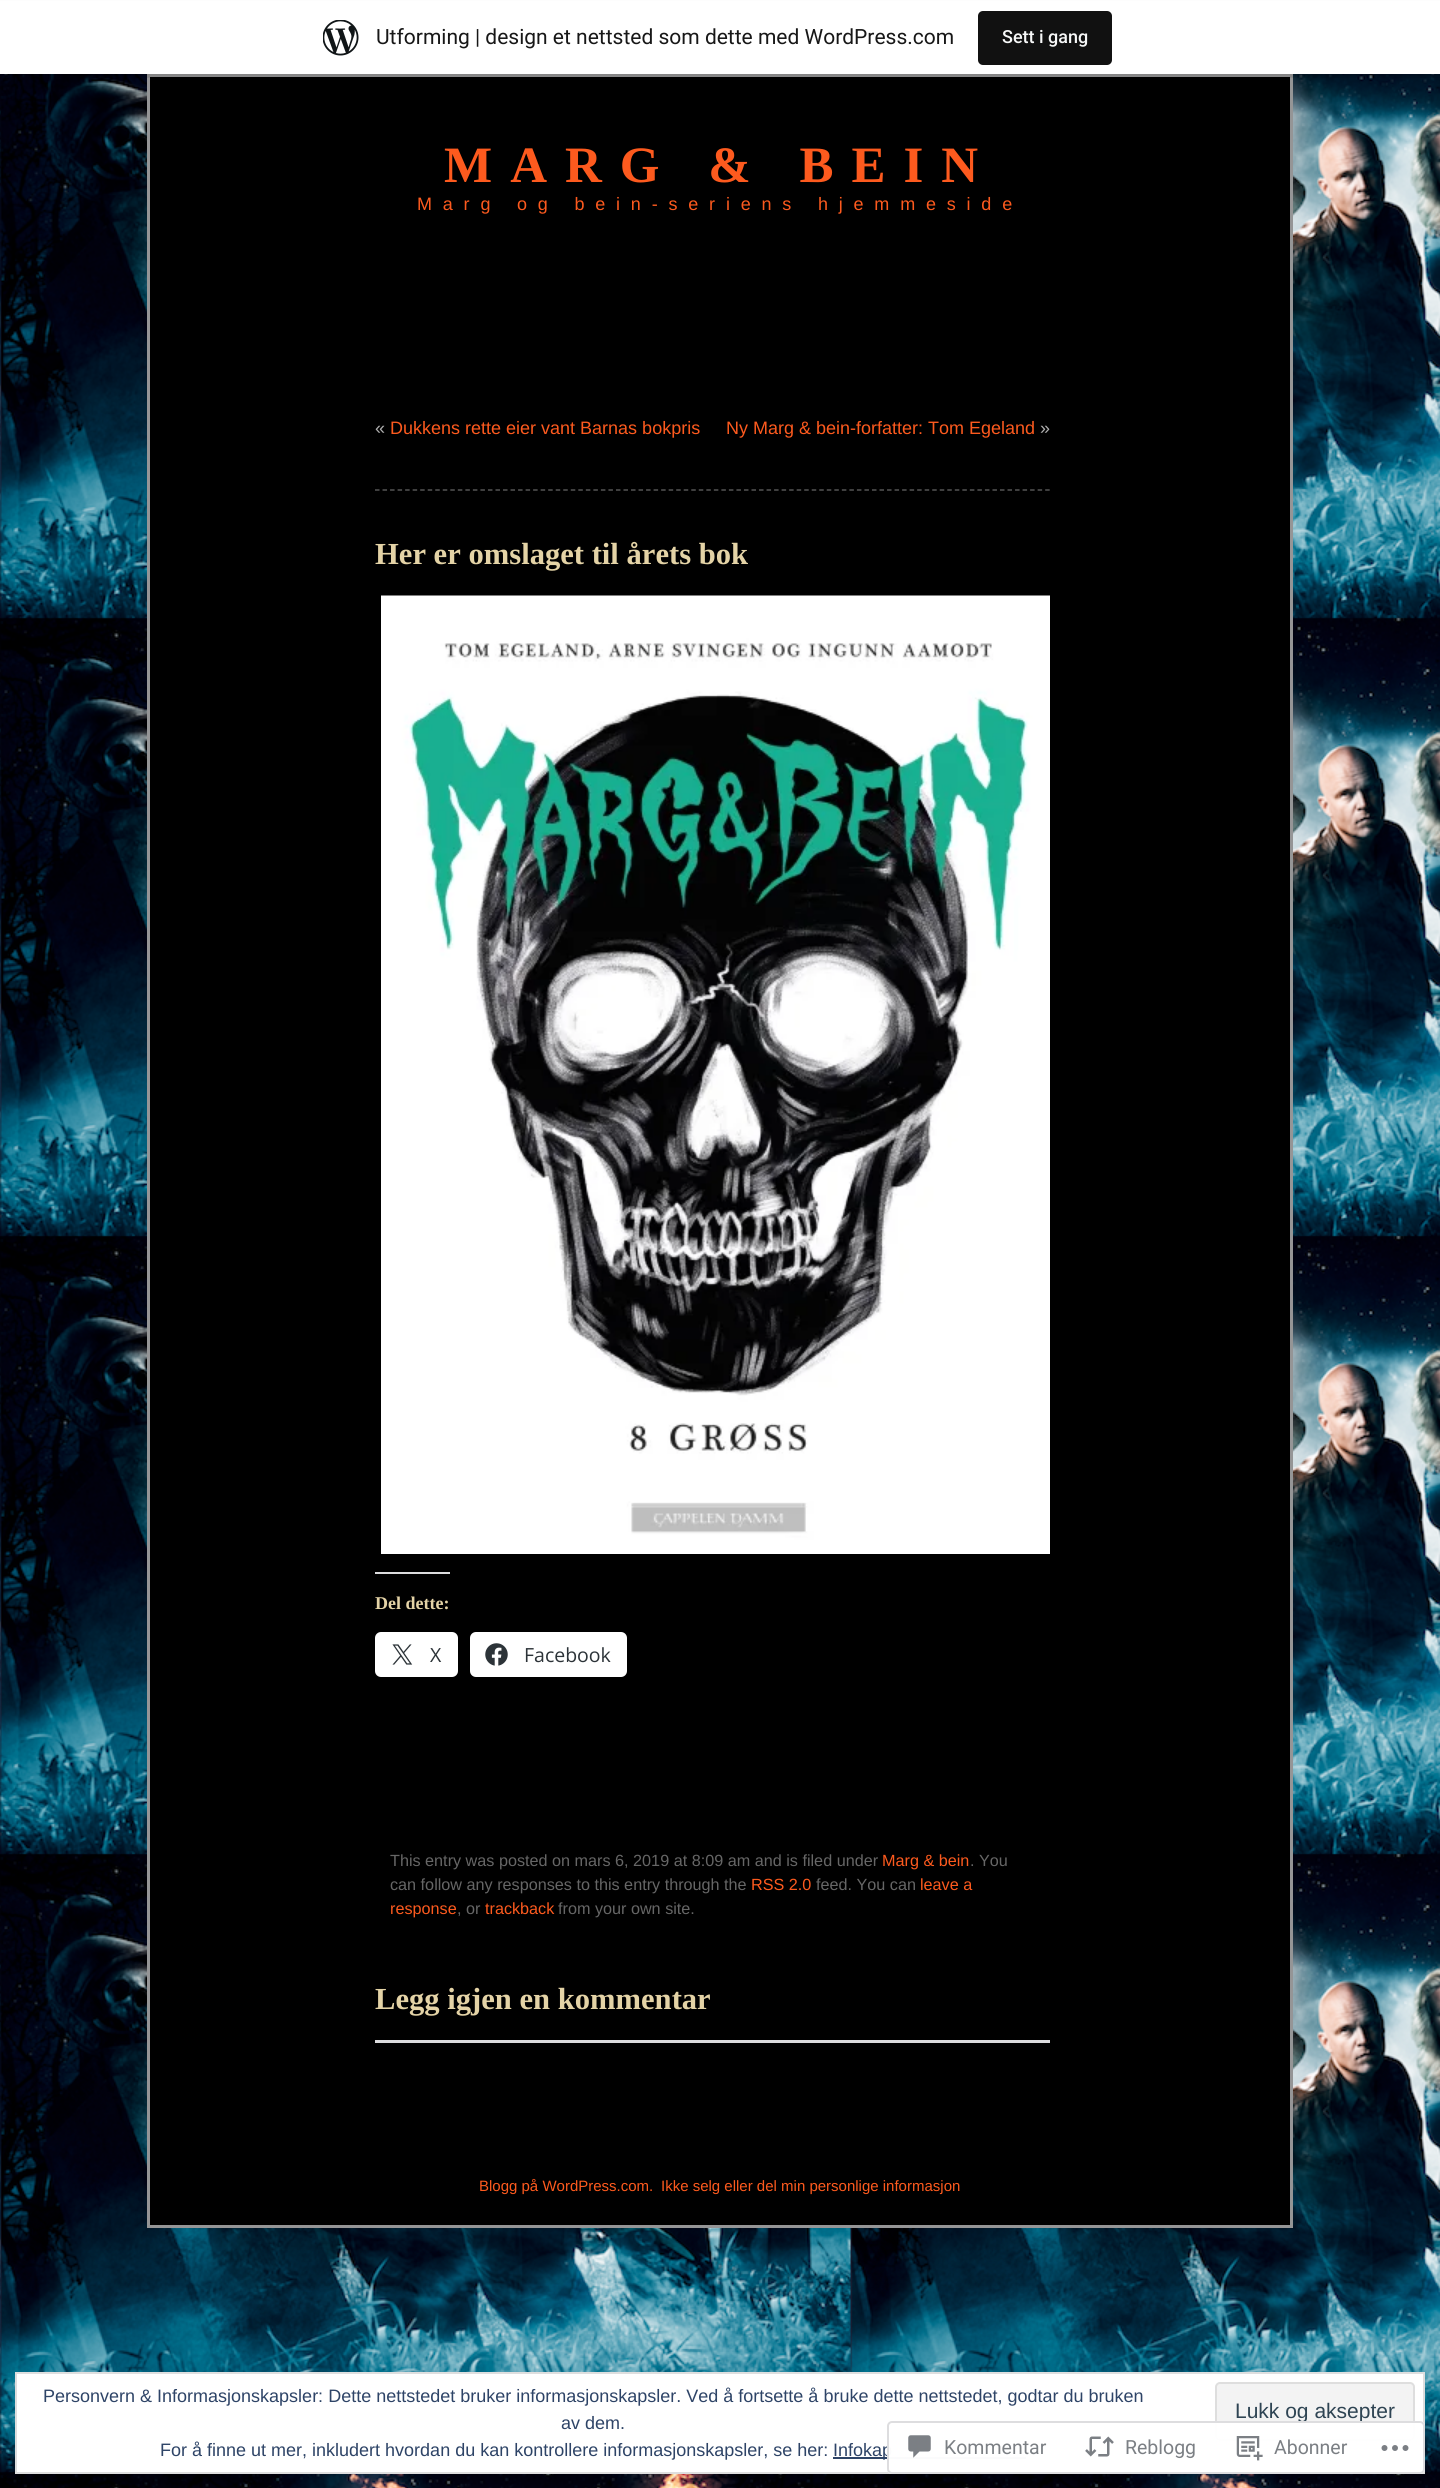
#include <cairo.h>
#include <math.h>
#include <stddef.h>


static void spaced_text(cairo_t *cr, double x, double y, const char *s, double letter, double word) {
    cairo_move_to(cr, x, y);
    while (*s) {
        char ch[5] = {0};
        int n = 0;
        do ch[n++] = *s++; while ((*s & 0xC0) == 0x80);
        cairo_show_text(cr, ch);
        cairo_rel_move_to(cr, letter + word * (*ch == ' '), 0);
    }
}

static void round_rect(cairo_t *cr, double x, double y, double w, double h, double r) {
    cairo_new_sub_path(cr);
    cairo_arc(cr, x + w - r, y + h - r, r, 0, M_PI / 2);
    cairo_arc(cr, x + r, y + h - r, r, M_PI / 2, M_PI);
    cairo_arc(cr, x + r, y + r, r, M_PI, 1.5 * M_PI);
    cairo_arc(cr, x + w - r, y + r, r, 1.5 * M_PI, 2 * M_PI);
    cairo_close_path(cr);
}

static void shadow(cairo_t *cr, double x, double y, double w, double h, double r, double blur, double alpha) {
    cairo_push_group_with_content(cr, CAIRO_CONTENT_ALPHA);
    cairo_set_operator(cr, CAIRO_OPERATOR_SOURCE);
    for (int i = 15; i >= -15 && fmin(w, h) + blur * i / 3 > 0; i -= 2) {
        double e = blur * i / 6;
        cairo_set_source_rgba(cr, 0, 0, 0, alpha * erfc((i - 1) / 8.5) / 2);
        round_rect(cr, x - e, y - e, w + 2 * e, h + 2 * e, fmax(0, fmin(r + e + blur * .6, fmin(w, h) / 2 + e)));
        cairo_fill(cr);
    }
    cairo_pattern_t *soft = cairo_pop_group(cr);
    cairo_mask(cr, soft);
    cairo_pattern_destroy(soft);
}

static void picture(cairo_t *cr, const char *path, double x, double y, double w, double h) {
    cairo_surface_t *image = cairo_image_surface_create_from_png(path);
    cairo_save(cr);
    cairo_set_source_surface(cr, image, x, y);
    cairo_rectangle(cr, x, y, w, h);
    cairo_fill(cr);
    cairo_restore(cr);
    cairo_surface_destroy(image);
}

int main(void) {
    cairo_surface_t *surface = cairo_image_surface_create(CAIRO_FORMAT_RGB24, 1440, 2488);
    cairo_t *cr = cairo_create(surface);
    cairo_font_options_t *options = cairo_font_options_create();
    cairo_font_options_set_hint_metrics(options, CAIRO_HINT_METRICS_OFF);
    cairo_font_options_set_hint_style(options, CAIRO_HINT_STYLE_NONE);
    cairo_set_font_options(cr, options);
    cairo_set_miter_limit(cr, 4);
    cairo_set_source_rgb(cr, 1, 1, 1);
    cairo_paint(cr);
    picture(cr, "img1.png", 0, 74, 1440, 2414);
    cairo_set_source_rgb(cr, 0, 0, 0);
    cairo_rectangle(cr, 148.5, 75.5, 1143, 2151);
    cairo_fill_preserve(cr);
    cairo_set_source_rgb(cr, 0.584, 0.584, 0.588);
    cairo_set_line_width(cr, 3);
    cairo_stroke(cr);
    cairo_set_source_rgb(cr, 0, 0, 0);
    shadow(cr, 0, 2, 1440, 73, 0, 1.5, 0.05);
    cairo_set_source_rgba(cr, 0, 0, 0, 0.08);
    cairo_new_path(cr);
    cairo_move_to(cr, 2, 74);
    cairo_line_to(cr, 2, 78);
    cairo_line_to(cr, 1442, 78);
    cairo_line_to(cr, 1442, 5);
    cairo_line_to(cr, 1440, 5);
    cairo_line_to(cr, 1440, 74);
    cairo_close_path(cr);
    cairo_fill(cr);
    cairo_set_source_rgb(cr, 1, 1, 1);
    cairo_rectangle(cr, 0, 1, 1440, 73);
    cairo_fill(cr);
    picture(cr, "img2.png", 323, 20, 36, 36);
    cairo_select_font_face(cr, "Roboto", CAIRO_FONT_SLANT_NORMAL, CAIRO_FONT_WEIGHT_NORMAL);
    cairo_set_font_size(cr, 21);
    cairo_set_source_rgb(cr, 0.09, 0.09, 0.09);
    cairo_move_to(cr, 376, 44);
    cairo_show_text(cr, "Utforming | design et nettsted som dette med WordPress.com");
    cairo_set_source_rgb(cr, 0.067, 0.067, 0.067);
    round_rect(cr, 978, 11, 134, 54, 5);
    cairo_fill(cr);
    cairo_select_font_face(cr, "Roboto Medium", CAIRO_FONT_SLANT_NORMAL, CAIRO_FONT_WEIGHT_NORMAL);
    cairo_set_font_size(cr, 18);
    cairo_set_source_rgb(cr, 0.965, 0.969, 0.969);
    cairo_move_to(cr, 1002, 43);
    cairo_show_text(cr, "Sett i gang");
    cairo_select_font_face(cr, "Liberation Serif", CAIRO_FONT_SLANT_NORMAL, CAIRO_FONT_WEIGHT_BOLD);
    cairo_set_font_size(cr, 51);
    cairo_set_source_rgb(cr, 0.992, 0.353, 0.118);
    spaced_text(cr, 444, 182, "MARG & BEIN", 18, 0);
    cairo_select_font_face(cr, "Liberation Sans", CAIRO_FONT_SLANT_NORMAL, CAIRO_FONT_WEIGHT_NORMAL);
    cairo_set_font_size(cr, 18);
    spaced_text(cr, 417, 210, "Marg og bein-seriens hjemmeside", 10.8, 0);
    cairo_set_source_rgb(cr, 0.69, 0.69, 0.69);
    cairo_move_to(cr, 375, 434);
    cairo_show_text(cr, "«");
    cairo_set_source_rgb(cr, 0.992, 0.353, 0.118);
    cairo_move_to(cr, 390, 434);
    cairo_show_text(cr, "Dukkens rette eier vant Barnas bokpris");
    cairo_move_to(cr, 726, 434);
    cairo_show_text(cr, "Ny Marg & bein-forfatter: Tom Egeland");
    cairo_set_source_rgb(cr, 0.69, 0.69, 0.69);
    cairo_move_to(cr, 1040, 434);
    cairo_show_text(cr, "»");
    cairo_new_path(cr);
    cairo_move_to(cr, 375, 490);
    cairo_line_to(cr, 1050, 490);
    cairo_set_source_rgb(cr, 0.333, 0.333, 0.333);
    cairo_set_line_width(cr, 1.5);
    cairo_set_dash(cr, (double[]){4.5, 3.03}, 2, 0);
    cairo_stroke(cr);
    cairo_select_font_face(cr, "Liberation Serif", CAIRO_FONT_SLANT_NORMAL, CAIRO_FONT_WEIGHT_BOLD);
    cairo_set_font_size(cr, 30.6);
    cairo_set_source_rgb(cr, 0.894, 0.827, 0.651);
    cairo_move_to(cr, 375, 564);
    cairo_show_text(cr, "Her er omslaget til årets bok");
    picture(cr, "img3.png", 381, 595, 669, 959);
    cairo_set_source_rgb(cr, 0.863, 0.863, 0.871);
    cairo_rectangle(cr, 375, 1572, 75, 2);
    cairo_fill(cr);
    cairo_set_font_size(cr, 18);
    cairo_set_source_rgb(cr, 0.894, 0.827, 0.651);
    cairo_move_to(cr, 375, 1609);
    cairo_show_text(cr, "Del dette:");
    cairo_set_source_rgb(cr, 1, 1, 1);
    round_rect(cr, 375, 1632, 83, 45, 6);
    cairo_fill(cr);
    picture(cr, "img4.png", 392, 1644, 21, 21);
    cairo_select_font_face(cr, "Open Sans", CAIRO_FONT_SLANT_NORMAL, CAIRO_FONT_WEIGHT_NORMAL);
    cairo_set_font_size(cr, 19.5);
    cairo_set_source_rgb(cr, 0.173, 0.2, 0.22);
    cairo_move_to(cr, 430, 1662);
    cairo_show_text(cr, "X");
    cairo_set_source_rgb(cr, 1, 1, 1);
    round_rect(cr, 470, 1632, 157, 45, 6);
    cairo_fill(cr);
    picture(cr, "img5.png", 485, 1643, 23, 23);
    cairo_set_source_rgb(cr, 0.173, 0.2, 0.22);
    cairo_move_to(cr, 524, 1662);
    cairo_show_text(cr, "Facebook");
    cairo_select_font_face(cr, "Liberation Sans", CAIRO_FONT_SLANT_NORMAL, CAIRO_FONT_WEIGHT_NORMAL);
    cairo_set_font_size(cr, 16.2);
    cairo_set_source_rgb(cr, 0.4, 0.4, 0.4);
    cairo_move_to(cr, 390, 1866);
    cairo_show_text(cr, "This entry was posted on mars 6, 2019 at 8:09 am and is filed under");
    cairo_set_source_rgb(cr, 0.992, 0.353, 0.118);
    cairo_move_to(cr, 882, 1866);
    cairo_show_text(cr, "Marg & bein");
    cairo_set_source_rgb(cr, 0.4, 0.4, 0.4);
    cairo_move_to(cr, 970, 1866);
    cairo_show_text(cr, ". You");
    cairo_move_to(cr, 390, 1890);
    cairo_show_text(cr, "can follow any responses to this entry through the");
    cairo_set_source_rgb(cr, 0.992, 0.353, 0.118);
    cairo_move_to(cr, 751, 1890);
    cairo_show_text(cr, "RSS 2.0");
    cairo_set_source_rgb(cr, 0.4, 0.4, 0.4);
    cairo_move_to(cr, 816, 1890);
    cairo_show_text(cr, "feed. You can");
    cairo_set_source_rgb(cr, 0.992, 0.353, 0.118);
    cairo_move_to(cr, 920, 1890);
    cairo_show_text(cr, "leave a");
    cairo_move_to(cr, 390, 1914);
    cairo_show_text(cr, "response");
    cairo_set_source_rgb(cr, 0.4, 0.4, 0.4);
    cairo_move_to(cr, 457, 1914);
    cairo_show_text(cr, ", or");
    cairo_set_source_rgb(cr, 0.992, 0.353, 0.118);
    cairo_move_to(cr, 485, 1914);
    cairo_show_text(cr, "trackback");
    cairo_set_source_rgb(cr, 0.4, 0.4, 0.4);
    cairo_move_to(cr, 558, 1914);
    cairo_show_text(cr, "from your own site.");
    cairo_select_font_face(cr, "Liberation Serif", CAIRO_FONT_SLANT_NORMAL, CAIRO_FONT_WEIGHT_BOLD);
    cairo_set_font_size(cr, 30.6);
    cairo_set_source_rgb(cr, 0.894, 0.827, 0.651);
    cairo_move_to(cr, 375, 2009);
    cairo_show_text(cr, "Legg igjen en kommentar");
    cairo_set_source_rgb(cr, 0.863, 0.863, 0.871);
    cairo_rectangle(cr, 375, 2040, 675, 3);
    cairo_fill(cr);
    cairo_select_font_face(cr, "Liberation Sans", CAIRO_FONT_SLANT_NORMAL, CAIRO_FONT_WEIGHT_NORMAL);
    cairo_set_font_size(cr, 15);
    cairo_set_source_rgb(cr, 0.992, 0.353, 0.118);
    cairo_move_to(cr, 479, 2191);
    cairo_show_text(cr, "Blogg på WordPress.com.");
    cairo_move_to(cr, 661, 2191);
    cairo_show_text(cr, "Ikke selg eller del min personlige informasjon");
    cairo_set_source_rgb(cr, 1, 1, 1);
    cairo_rectangle(cr, 16, 2373, 1408, 100);
    cairo_fill_preserve(cr);
    cairo_set_source_rgb(cr, 0.871, 0.871, 0.871);
    cairo_set_line_width(cr, 2);
    cairo_set_dash(cr, NULL, 0, 0);
    cairo_stroke(cr);
    cairo_set_font_size(cr, 18);
    cairo_set_source_rgb(cr, 0.18, 0.267, 0.404);
    cairo_move_to(cr, 43, 2402);
    cairo_show_text(cr, "Personvern & Informasjonskapsler: Dette nettstedet bruker informasjonskapsler. Ved å fortsette å bruke dette nettstedet, godtar du bruken");
    cairo_move_to(cr, 561, 2429);
    cairo_show_text(cr, "av dem.");
    cairo_set_source_rgb(cr, 0.953, 0.953, 0.953);
    round_rect(cr, 1216, 2383, 198, 57, 4);
    cairo_fill_preserve(cr);
    cairo_set_source_rgb(cr, 0.871, 0.871, 0.871);
    cairo_stroke(cr);
    cairo_set_font_size(cr, 21);
    cairo_set_source_rgb(cr, 0.18, 0.267, 0.325);
    cairo_move_to(cr, 1235, 2418);
    cairo_show_text(cr, "Lukk og aksepter");
    cairo_set_font_size(cr, 18);
    cairo_set_source_rgb(cr, 0.18, 0.267, 0.404);
    cairo_move_to(cr, 160, 2456);
    cairo_show_text(cr, "For å finne ut mer, inkludert hvordan du kan kontrollere informasjonskapsler, se her:");
    cairo_rectangle(cr, 833, 2457, 193, 2);
    cairo_fill(cr);
    cairo_move_to(cr, 833, 2456);
    cairo_show_text(cr, "Infokap");
    cairo_set_source_rgba(cr, 1, 1, 1, 0.98);
    round_rect(cr, 887, 2421, 538, 53, 5);
    cairo_fill(cr);
    round_rect(cr, 888, 2422, 536, 51, 4);
    cairo_set_source_rgba(cr, 0.863, 0.863, 0.871, 0.98);
    cairo_stroke(cr);
    picture(cr, "img6.png", 908, 2435, 23, 23);
    cairo_select_font_face(cr, "Roboto", CAIRO_FONT_SLANT_NORMAL, CAIRO_FONT_WEIGHT_NORMAL);
    cairo_set_font_size(cr, 19.5);
    cairo_set_source_rgb(cr, 0.482, 0.498, 0.518);
    cairo_move_to(cr, 944, 2454);
    cairo_show_text(cr, "Kommentar");
    picture(cr, "img7.png", 1085, 2436, 29, 21);
    cairo_move_to(cr, 1125, 2454);
    cairo_show_text(cr, "Reblogg");
    picture(cr, "img8.png", 1236, 2436, 27, 25);
    cairo_move_to(cr, 1274, 2454);
    cairo_show_text(cr, "Abonner");
    picture(cr, "img9.png", 1381, 2445, 28, 6);
    cairo_surface_write_to_png(surface, "page.png");
    cairo_font_options_destroy(options);
    cairo_destroy(cr);
    cairo_surface_destroy(surface);
    return 0;
}
